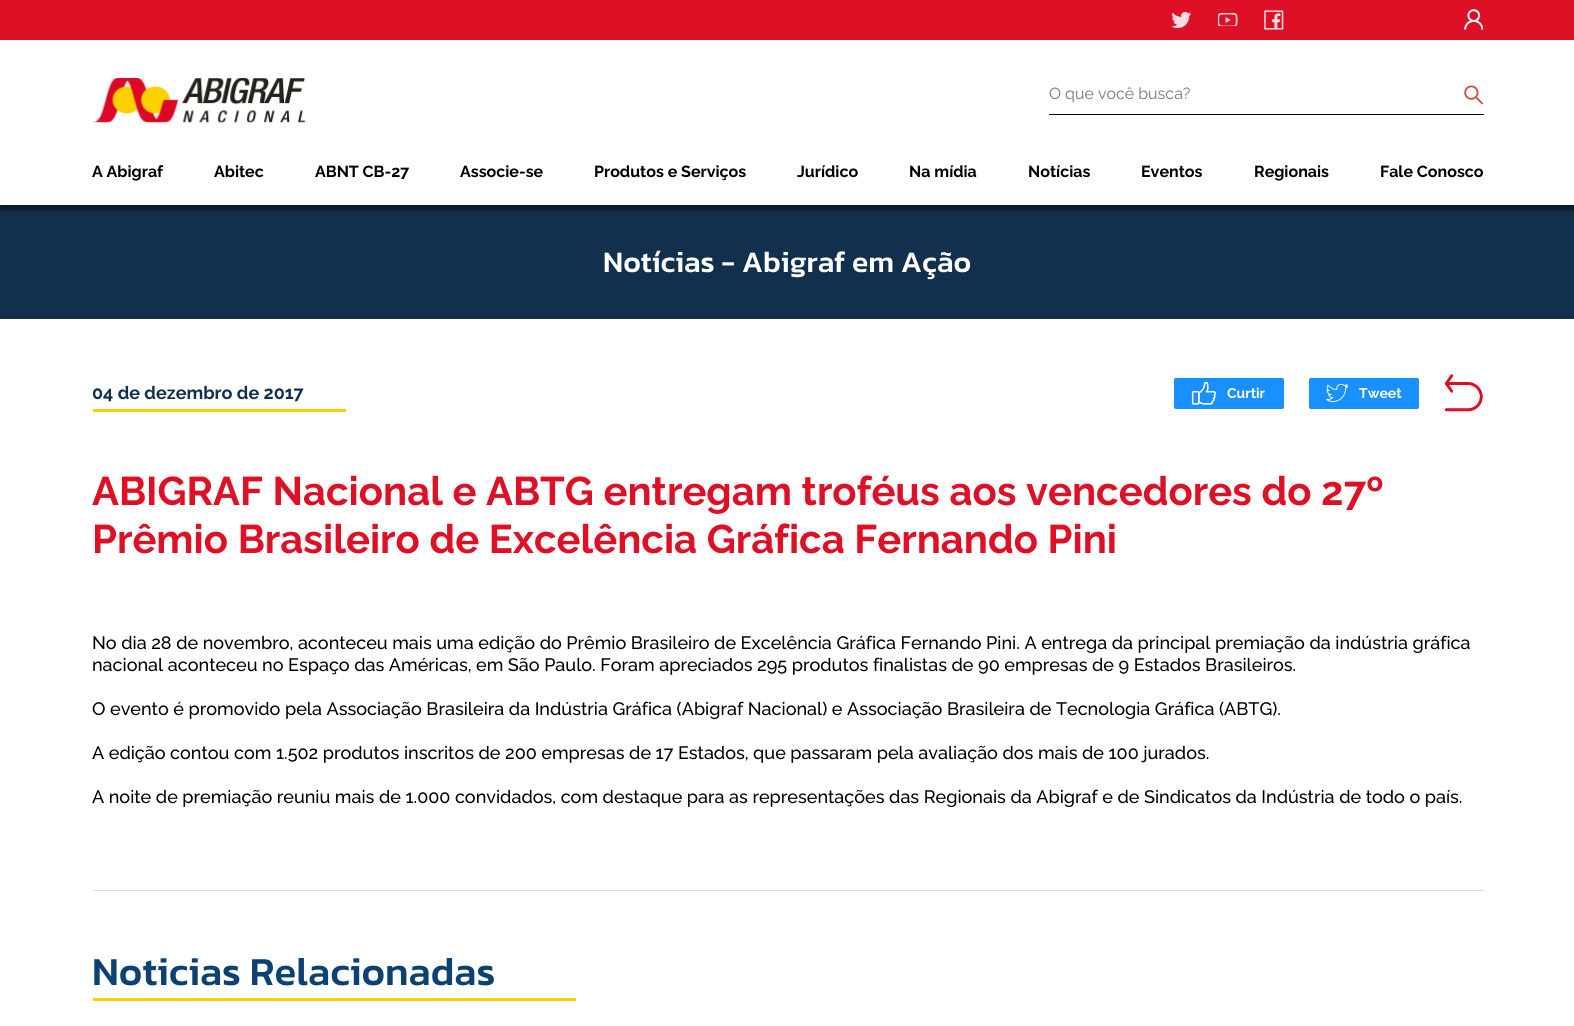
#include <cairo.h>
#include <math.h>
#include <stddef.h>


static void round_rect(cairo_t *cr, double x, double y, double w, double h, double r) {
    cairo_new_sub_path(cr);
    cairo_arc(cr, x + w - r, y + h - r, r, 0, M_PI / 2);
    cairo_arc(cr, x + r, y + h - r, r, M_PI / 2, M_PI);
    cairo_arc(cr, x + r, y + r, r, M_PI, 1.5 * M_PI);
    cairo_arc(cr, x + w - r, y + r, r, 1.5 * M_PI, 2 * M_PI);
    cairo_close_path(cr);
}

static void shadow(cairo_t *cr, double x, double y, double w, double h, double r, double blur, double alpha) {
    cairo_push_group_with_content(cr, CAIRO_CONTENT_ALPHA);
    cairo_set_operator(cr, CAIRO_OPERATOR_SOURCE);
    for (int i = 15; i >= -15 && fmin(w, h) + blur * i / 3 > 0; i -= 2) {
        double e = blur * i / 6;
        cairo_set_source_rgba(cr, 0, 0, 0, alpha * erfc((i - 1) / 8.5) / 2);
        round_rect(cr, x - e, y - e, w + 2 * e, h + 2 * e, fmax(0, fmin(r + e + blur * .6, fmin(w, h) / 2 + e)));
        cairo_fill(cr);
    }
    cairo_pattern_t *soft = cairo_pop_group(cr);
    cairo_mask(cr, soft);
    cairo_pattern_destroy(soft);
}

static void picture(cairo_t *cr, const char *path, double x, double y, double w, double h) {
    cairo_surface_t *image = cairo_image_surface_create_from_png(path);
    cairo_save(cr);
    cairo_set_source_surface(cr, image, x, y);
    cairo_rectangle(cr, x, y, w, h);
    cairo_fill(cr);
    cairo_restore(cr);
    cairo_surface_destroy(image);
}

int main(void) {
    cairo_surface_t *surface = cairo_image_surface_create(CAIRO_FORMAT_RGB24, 1574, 1026);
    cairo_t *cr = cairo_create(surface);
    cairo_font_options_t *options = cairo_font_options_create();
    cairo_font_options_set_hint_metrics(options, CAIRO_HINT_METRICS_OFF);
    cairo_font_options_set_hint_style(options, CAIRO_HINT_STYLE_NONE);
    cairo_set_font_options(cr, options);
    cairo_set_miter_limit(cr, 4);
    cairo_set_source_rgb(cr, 1, 1, 1);
    cairo_paint(cr);
    cairo_set_source_rgb(cr, 0.071, 0.188, 0.302);
    cairo_rectangle(cr, 0, 205, 1574, 114);
    cairo_fill(cr);
    cairo_save(cr);
    cairo_rectangle(cr, 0, 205, 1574, 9);
    cairo_clip(cr);
    cairo_set_source_rgb(cr, 0, 0, 0);
    shadow(cr, 0, 5, 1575, 205, 0, 2.5, 0.5);
    cairo_restore(cr);
    cairo_set_source_rgb(cr, 0.871, 0.063, 0.149);
    cairo_rectangle(cr, 0, 0, 1574, 40);
    cairo_fill(cr);
    picture(cr, "img1.png", 1171, 11, 20, 17);
    picture(cr, "img2.png", 1218, 13, 20, 13);
    picture(cr, "img3.png", 1264, 10, 20, 20);
    picture(cr, "img4.png", 1464, 9, 19, 21);
    picture(cr, "img5.png", 93, 78, 212, 45);
    cairo_set_source_rgb(cr, 0, 0, 0);
    cairo_rectangle(cr, 1049, 114, 435, 1);
    cairo_fill(cr);
    cairo_select_font_face(cr, "Raleway", CAIRO_FONT_SLANT_NORMAL, CAIRO_FONT_WEIGHT_NORMAL);
    cairo_set_font_size(cr, 16);
    cairo_set_source_rgb(cr, 0.459, 0.459, 0.459);
    cairo_move_to(cr, 1049, 99);
    cairo_show_text(cr, "O que você busca?");
    picture(cr, "img6.png", 1464, 85, 20, 20);
    cairo_select_font_face(cr, "Raleway", CAIRO_FONT_SLANT_NORMAL, CAIRO_FONT_WEIGHT_BOLD);
    cairo_set_source_rgb(cr, 0, 0, 0);
    cairo_move_to(cr, 92, 177);
    cairo_show_text(cr, "A Abigraf");
    cairo_move_to(cr, 214, 177);
    cairo_show_text(cr, "Abitec");
    cairo_move_to(cr, 315, 177);
    cairo_show_text(cr, "ABNT CB-27");
    cairo_move_to(cr, 460, 177);
    cairo_show_text(cr, "Associe-se");
    cairo_move_to(cr, 594, 177);
    cairo_show_text(cr, "Produtos e Serviços");
    cairo_move_to(cr, 797, 177);
    cairo_show_text(cr, "Jurídico");
    cairo_move_to(cr, 909, 177);
    cairo_show_text(cr, "Na mídia");
    cairo_move_to(cr, 1028, 177);
    cairo_show_text(cr, "Notícias");
    cairo_move_to(cr, 1141, 177);
    cairo_show_text(cr, "Eventos");
    cairo_move_to(cr, 1254, 177);
    cairo_show_text(cr, "Regionais");
    cairo_move_to(cr, 1380, 177);
    cairo_show_text(cr, "Fale Conosco");
    cairo_select_font_face(cr, "Kanit Medium", CAIRO_FONT_SLANT_NORMAL, CAIRO_FONT_WEIGHT_NORMAL);
    cairo_set_font_size(cr, 30);
    cairo_set_source_rgb(cr, 1, 1, 1);
    cairo_move_to(cr, 603, 272);
    cairo_show_text(cr, "Notícias - Abigraf em Ação");
    cairo_select_font_face(cr, "Raleway", CAIRO_FONT_SLANT_NORMAL, CAIRO_FONT_WEIGHT_BOLD);
    cairo_set_font_size(cr, 18);
    cairo_set_source_rgb(cr, 0.071, 0.188, 0.302);
    cairo_move_to(cr, 92, 399);
    cairo_show_text(cr, "04 de dezembro de 2017");
    cairo_set_source_rgb(cr, 0.988, 0.812, 0);
    cairo_rectangle(cr, 93, 409, 253, 3);
    cairo_fill(cr);
    cairo_set_source_rgb(cr, 0.094, 0.565, 1);
    round_rect(cr, 1174.5, 378.5, 109, 30, 1.5);
    cairo_fill_preserve(cr);
    cairo_set_line_width(cr, 1);
    cairo_stroke(cr);
    picture(cr, "img7.png", 1191, 381, 25, 24);
    cairo_set_font_size(cr, 14);
    cairo_set_source_rgb(cr, 1, 1, 1);
    cairo_move_to(cr, 1227, 398);
    cairo_show_text(cr, "Curtir");
    cairo_set_source_rgb(cr, 0.094, 0.565, 1);
    round_rect(cr, 1309.5, 378.5, 109, 30, 1.5);
    cairo_fill_preserve(cr);
    cairo_stroke(cr);
    picture(cr, "img8.png", 1326, 384, 23, 18);
    cairo_set_source_rgb(cr, 1, 1, 1);
    cairo_move_to(cr, 1359, 398);
    cairo_show_text(cr, "Tweet");
    picture(cr, "img9.png", 1445, 374, 38, 38);
    cairo_set_font_size(cr, 40);
    cairo_set_source_rgb(cr, 0.871, 0.063, 0.149);
    cairo_move_to(cr, 92, 505);
    cairo_show_text(cr, "ABIGRAF Nacional e ABTG entregam troféus aos vencedores do 27º");
    cairo_move_to(cr, 92, 553);
    cairo_show_text(cr, "Prêmio Brasileiro de Excelência Gráfica Fernando Pini");
    cairo_set_source_rgb(cr, 0.863, 0.863, 0.863);
    cairo_rectangle(cr, 93, 890, 1391, 1);
    cairo_fill(cr);
    cairo_select_font_face(cr, "Raleway Medium", CAIRO_FONT_SLANT_NORMAL, CAIRO_FONT_WEIGHT_NORMAL);
    cairo_set_font_size(cr, 18);
    cairo_set_source_rgb(cr, 0, 0, 0);
    cairo_move_to(cr, 92, 649);
    cairo_show_text(cr, "No dia 28 de novembro, aconteceu mais uma edição do Prêmio Brasileiro de Excelência Gráfica Fernando Pini. A entrega da principal premiação da indústria gráfica");
    cairo_move_to(cr, 92, 671);
    cairo_show_text(cr, "nacional aconteceu no Espaço das Américas, em São Paulo. Foram apreciados 295 produtos finalistas de 90 empresas de 9 Estados Brasileiros.");
    cairo_move_to(cr, 92, 715);
    cairo_show_text(cr, "O evento é promovido pela Associação Brasileira da Indústria Gráfica (Abigraf Nacional) e Associação Brasileira de Tecnologia Gráfica (ABTG).");
    cairo_move_to(cr, 92, 759);
    cairo_show_text(cr, "A edição contou com 1.502 produtos inscritos de 200 empresas de 17 Estados, que passaram pela avaliação dos mais de 100 jurados.");
    cairo_move_to(cr, 92, 803);
    cairo_show_text(cr, "A noite de premiação reuniu mais de 1.000 convidados, com destaque para as representações das Regionais da Abigraf e de Sindicatos da Indústria de todo o país.");
    cairo_select_font_face(cr, "Kanit Medium", CAIRO_FONT_SLANT_NORMAL, CAIRO_FONT_WEIGHT_NORMAL);
    cairo_set_font_size(cr, 40);
    cairo_set_source_rgb(cr, 0.043, 0.255, 0.451);
    cairo_move_to(cr, 92, 985);
    cairo_show_text(cr, "Noticias Relacionadas");
    cairo_set_source_rgb(cr, 0.988, 0.812, 0);
    cairo_rectangle(cr, 93, 998, 483, 3);
    cairo_fill(cr);
    cairo_surface_write_to_png(surface, "page.png");
    cairo_font_options_destroy(options);
    cairo_destroy(cr);
    cairo_surface_destroy(surface);
    return 0;
}
